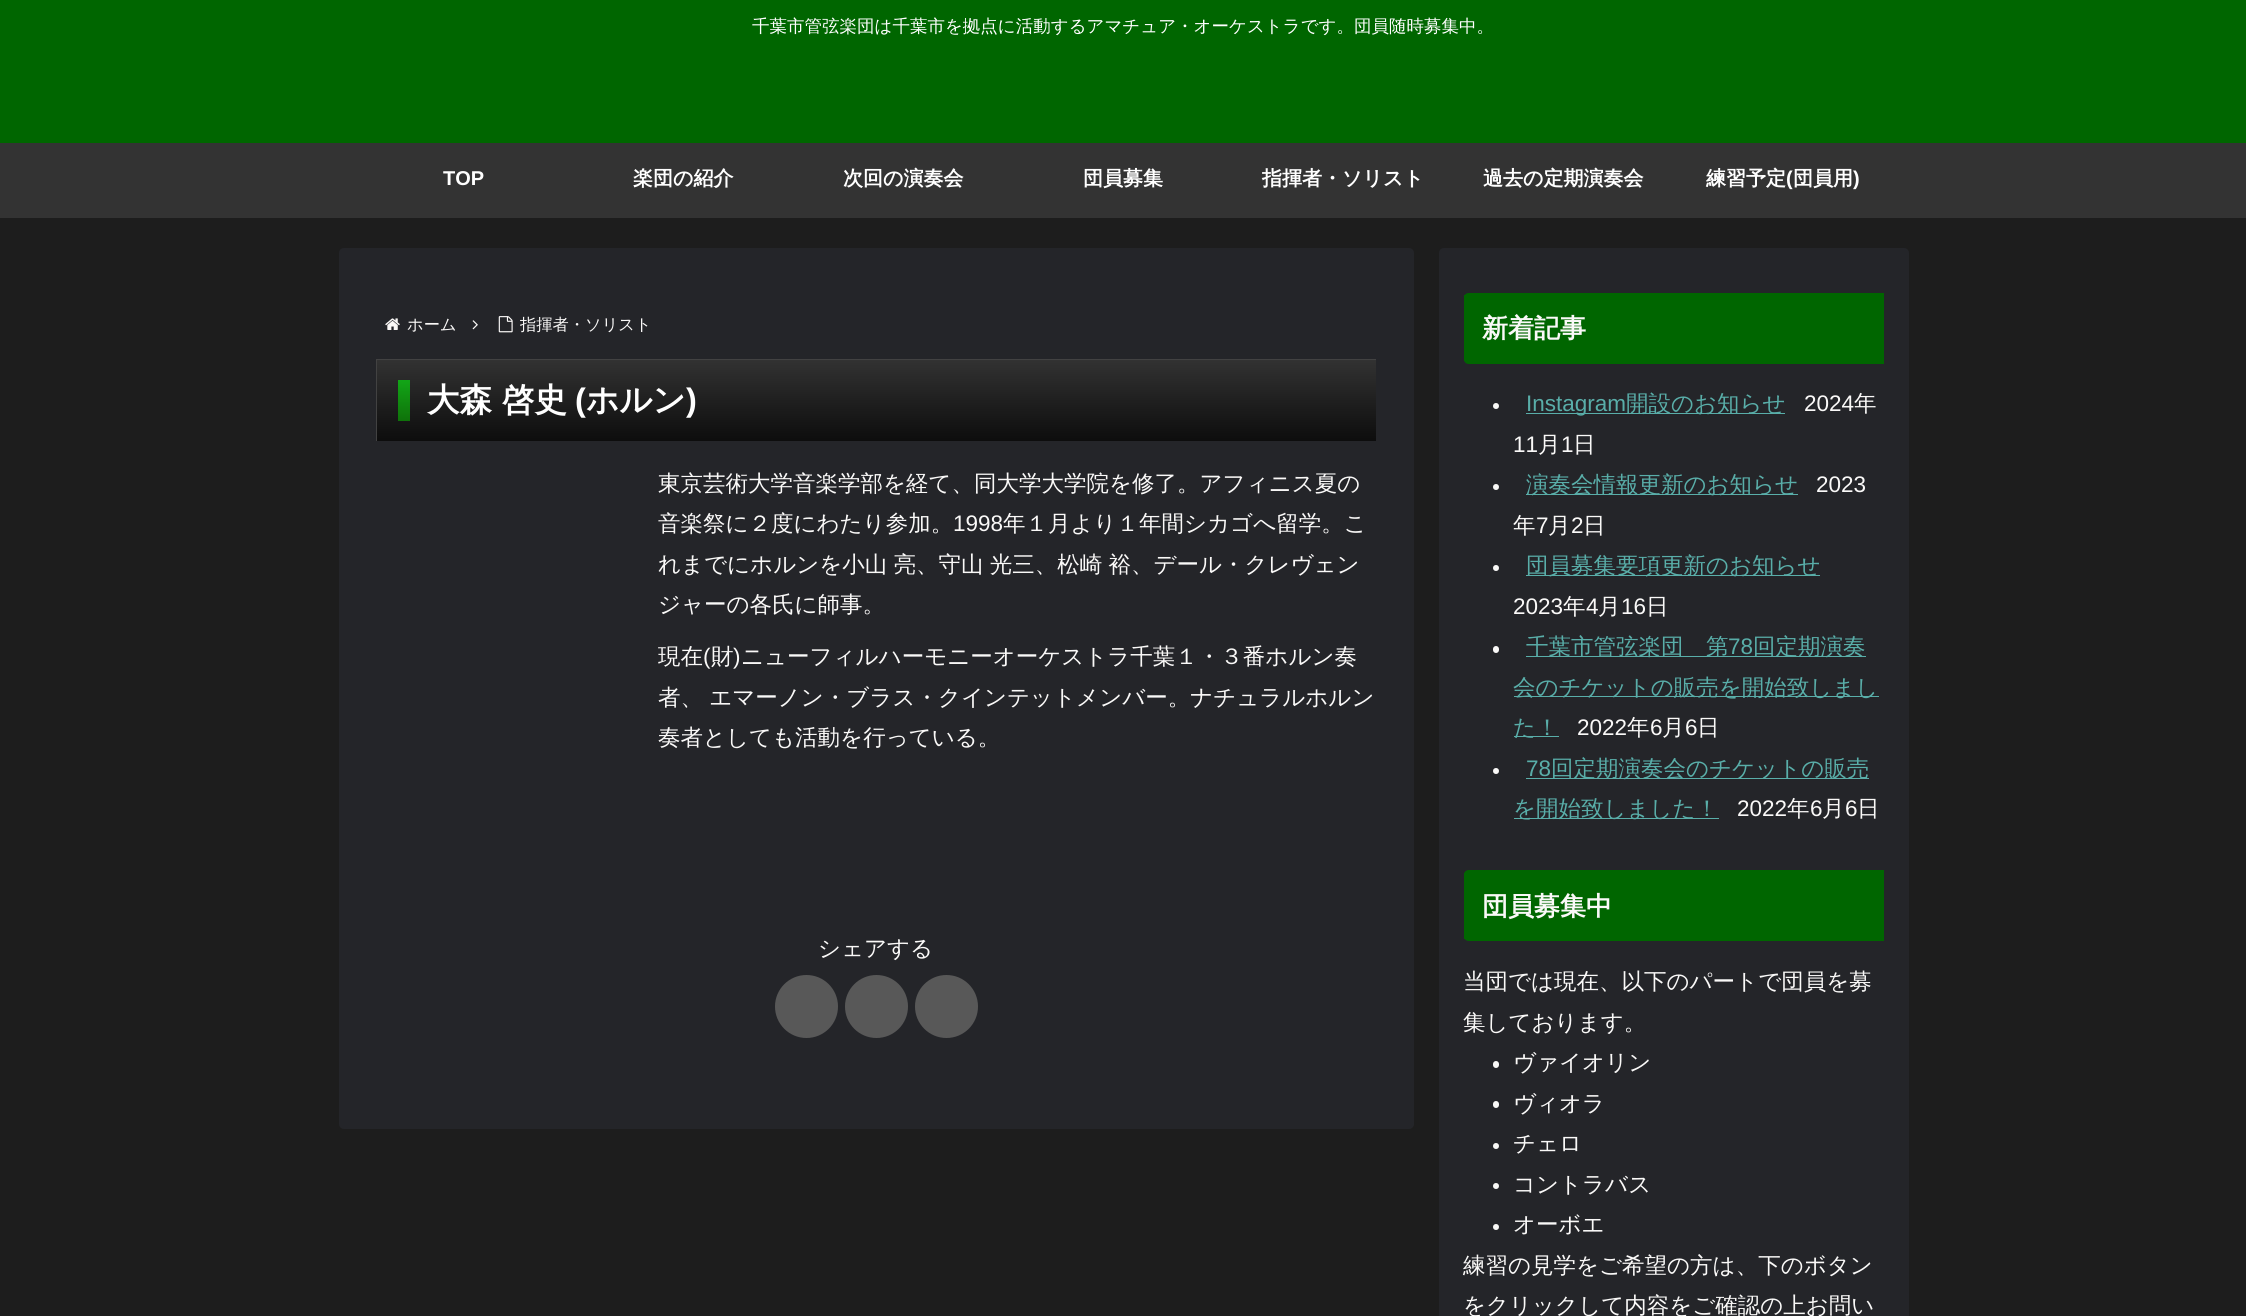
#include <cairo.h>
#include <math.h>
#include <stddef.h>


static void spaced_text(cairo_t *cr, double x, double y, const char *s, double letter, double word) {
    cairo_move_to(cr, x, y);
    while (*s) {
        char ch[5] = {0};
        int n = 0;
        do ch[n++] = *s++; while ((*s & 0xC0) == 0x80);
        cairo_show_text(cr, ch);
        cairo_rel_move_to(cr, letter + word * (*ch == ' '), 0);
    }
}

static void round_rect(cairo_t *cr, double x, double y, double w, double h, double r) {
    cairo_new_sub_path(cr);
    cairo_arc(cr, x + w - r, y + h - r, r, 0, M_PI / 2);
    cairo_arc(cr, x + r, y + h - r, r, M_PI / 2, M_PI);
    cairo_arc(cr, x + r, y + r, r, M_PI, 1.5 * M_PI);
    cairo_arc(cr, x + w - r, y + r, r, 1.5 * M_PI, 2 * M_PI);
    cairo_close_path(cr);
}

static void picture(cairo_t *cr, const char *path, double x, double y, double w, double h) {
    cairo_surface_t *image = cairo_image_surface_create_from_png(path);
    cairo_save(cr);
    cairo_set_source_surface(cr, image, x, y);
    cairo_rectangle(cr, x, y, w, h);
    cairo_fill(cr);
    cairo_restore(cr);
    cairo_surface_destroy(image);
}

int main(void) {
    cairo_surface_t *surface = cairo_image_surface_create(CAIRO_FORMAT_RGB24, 2246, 1316);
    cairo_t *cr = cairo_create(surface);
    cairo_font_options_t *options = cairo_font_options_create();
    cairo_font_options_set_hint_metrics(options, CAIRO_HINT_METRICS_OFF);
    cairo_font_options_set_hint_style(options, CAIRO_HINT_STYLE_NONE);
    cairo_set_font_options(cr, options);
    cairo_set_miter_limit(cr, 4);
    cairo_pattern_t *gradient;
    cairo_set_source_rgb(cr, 0.114, 0.114, 0.114);
    cairo_paint(cr);
    cairo_set_source_rgb(cr, 0, 0.4, 0);
    cairo_rectangle(cr, 0, 0, 2246, 143);
    cairo_fill(cr);
    cairo_select_font_face(cr, "WenQuanYi Zen Hei Medium", CAIRO_FONT_SLANT_NORMAL, CAIRO_FONT_WEIGHT_NORMAL);
    cairo_set_font_size(cr, 17.5);
    cairo_set_source_rgb(cr, 1, 1, 1);
    cairo_move_to(cr, 752, 32);
    cairo_show_text(cr, "千葉市管弦楽団は千葉市を拠点に活動するアマチュア・オーケストラです。団員随時募集中。");
    cairo_set_source_rgb(cr, 0.2, 0.2, 0.2);
    cairo_rectangle(cr, 0, 143, 2246, 75);
    cairo_fill(cr);
    cairo_select_font_face(cr, "Liberation Sans", CAIRO_FONT_SLANT_NORMAL, CAIRO_FONT_WEIGHT_BOLD);
    cairo_set_font_size(cr, 20);
    cairo_set_source_rgb(cr, 1, 1, 1);
    cairo_move_to(cr, 443, 185);
    cairo_show_text(cr, "TOP");
    cairo_select_font_face(cr, "WenQuanYi Zen Hei", CAIRO_FONT_SLANT_NORMAL, CAIRO_FONT_WEIGHT_BOLD);
    cairo_move_to(cr, 633, 185);
    cairo_show_text(cr, "楽団の紹介");
    cairo_move_to(cr, 843, 185);
    cairo_show_text(cr, "次回の演奏会");
    cairo_move_to(cr, 1083, 185);
    cairo_show_text(cr, "団員募集");
    cairo_move_to(cr, 1262, 185);
    cairo_show_text(cr, "指揮者・ソリスト");
    cairo_move_to(cr, 1483, 185);
    cairo_show_text(cr, "過去の定期演奏会");
    cairo_move_to(cr, 1706, 185);
    cairo_show_text(cr, "練習予定");
    cairo_select_font_face(cr, "Liberation Sans", CAIRO_FONT_SLANT_NORMAL, CAIRO_FONT_WEIGHT_BOLD);
    cairo_move_to(cr, 1786, 185);
    cairo_show_text(cr, "(");
    cairo_select_font_face(cr, "WenQuanYi Zen Hei", CAIRO_FONT_SLANT_NORMAL, CAIRO_FONT_WEIGHT_BOLD);
    cairo_move_to(cr, 1793, 185);
    cairo_show_text(cr, "団員用");
    cairo_select_font_face(cr, "Liberation Sans", CAIRO_FONT_SLANT_NORMAL, CAIRO_FONT_WEIGHT_BOLD);
    cairo_move_to(cr, 1853, 185);
    cairo_show_text(cr, ")");
    cairo_set_source_rgb(cr, 0.141, 0.145, 0.161);
    round_rect(cr, 339, 248, 1075, 881, 5);
    cairo_fill(cr);
    picture(cr, "img1.png", 385, 318, 15, 12);
    cairo_select_font_face(cr, "WenQuanYi Zen Hei Medium", CAIRO_FONT_SLANT_NORMAL, CAIRO_FONT_WEIGHT_NORMAL);
    cairo_set_font_size(cr, 16.25);
    cairo_set_source_rgb(cr, 0.98, 0.973, 0.969);
    cairo_move_to(cr, 407, 330);
    cairo_show_text(cr, "ホーム");
    picture(cr, "img2.png", 472, 320, 6, 10);
    picture(cr, "img3.png", 498, 316, 15, 17);
    cairo_move_to(cr, 520, 330);
    cairo_show_text(cr, "指揮者・ソリスト");
    gradient = cairo_pattern_create_linear(877, 360, 877, 441);
    cairo_pattern_add_color_stop_rgba(gradient, 0, 0.196, 0.196, 0.196, 1);
    cairo_pattern_add_color_stop_rgba(gradient, 1, 0.051, 0.051, 0.051, 1);
    cairo_set_source(cr, gradient);
    cairo_pattern_destroy(gradient);
    cairo_rectangle(cr, 377, 360, 999, 81);
    cairo_fill(cr);
    cairo_set_source_rgb(cr, 0.259, 0.259, 0.259);
    cairo_rectangle(cr, 376, 359, 1000, 1);
    cairo_fill(cr);
    cairo_rectangle(cr, 376, 359, 1, 82);
    cairo_fill(cr);
    gradient = cairo_pattern_create_linear(404, 380, 404, 421);
    cairo_pattern_add_color_stop_rgba(gradient, 0, 0.071, 0.651, 0.09, 1);
    cairo_pattern_add_color_stop_rgba(gradient, 1, 0.059, 0.447, 0.039, 1);
    cairo_set_source(cr, gradient);
    cairo_pattern_destroy(gradient);
    cairo_rectangle(cr, 398, 380, 12, 41);
    cairo_fill(cr);
    cairo_select_font_face(cr, "WenQuanYi Zen Hei", CAIRO_FONT_SLANT_NORMAL, CAIRO_FONT_WEIGHT_BOLD);
    cairo_set_font_size(cr, 32.5);
    cairo_set_source_rgb(cr, 1, 1, 1);
    cairo_move_to(cr, 427, 411);
    cairo_show_text(cr, "大森 啓史");
    cairo_select_font_face(cr, "Liberation Sans", CAIRO_FONT_SLANT_NORMAL, CAIRO_FONT_WEIGHT_BOLD);
    cairo_move_to(cr, 575, 411);
    cairo_show_text(cr, "(");
    cairo_select_font_face(cr, "WenQuanYi Zen Hei", CAIRO_FONT_SLANT_NORMAL, CAIRO_FONT_WEIGHT_BOLD);
    cairo_move_to(cr, 586, 411);
    cairo_show_text(cr, "ホルン");
    cairo_select_font_face(cr, "Liberation Sans", CAIRO_FONT_SLANT_NORMAL, CAIRO_FONT_WEIGHT_BOLD);
    cairo_move_to(cr, 686, 411);
    cairo_show_text(cr, ")");
    cairo_select_font_face(cr, "WenQuanYi Zen Hei Medium", CAIRO_FONT_SLANT_NORMAL, CAIRO_FONT_WEIGHT_NORMAL);
    cairo_set_font_size(cr, 22.5);
    cairo_set_source_rgb(cr, 0.98, 0.973, 0.969);
    cairo_move_to(cr, 658, 491);
    cairo_show_text(cr, "東京芸術大学音楽学部を経て、同大学大学院を修了。アフィニス夏の");
    cairo_move_to(cr, 658, 531);
    cairo_show_text(cr, "音楽祭に２度にわたり参加。");
    cairo_select_font_face(cr, "Liberation Sans", CAIRO_FONT_SLANT_NORMAL, CAIRO_FONT_WEIGHT_NORMAL);
    cairo_move_to(cr, 953, 531);
    cairo_show_text(cr, "1998");
    cairo_select_font_face(cr, "WenQuanYi Zen Hei Medium", CAIRO_FONT_SLANT_NORMAL, CAIRO_FONT_WEIGHT_NORMAL);
    cairo_move_to(cr, 1003, 531);
    cairo_show_text(cr, "年１月より１年間シカゴへ留学。こ");
    spaced_text(cr, 658, 572, "れまでにホルンを小山 亮、守山 光三、松崎 裕、デール・クレヴェン", 0, -0.5);
    cairo_move_to(cr, 658, 612);
    cairo_show_text(cr, "ジャーの各氏に師事。");
    cairo_move_to(cr, 658, 664);
    cairo_show_text(cr, "現在");
    cairo_select_font_face(cr, "Liberation Sans", CAIRO_FONT_SLANT_NORMAL, CAIRO_FONT_WEIGHT_NORMAL);
    cairo_move_to(cr, 703, 664);
    cairo_show_text(cr, "(");
    cairo_select_font_face(cr, "WenQuanYi Zen Hei Medium", CAIRO_FONT_SLANT_NORMAL, CAIRO_FONT_WEIGHT_NORMAL);
    cairo_move_to(cr, 711, 664);
    cairo_show_text(cr, "財");
    cairo_select_font_face(cr, "Liberation Sans", CAIRO_FONT_SLANT_NORMAL, CAIRO_FONT_WEIGHT_NORMAL);
    cairo_move_to(cr, 733, 664);
    cairo_show_text(cr, ")");
    cairo_select_font_face(cr, "WenQuanYi Zen Hei Medium", CAIRO_FONT_SLANT_NORMAL, CAIRO_FONT_WEIGHT_NORMAL);
    cairo_move_to(cr, 741, 664);
    cairo_show_text(cr, "ニューフィルハーモニーオーケストラ千葉１・３番ホルン奏");
    spaced_text(cr, 658, 705, "者、 エマーノン・ブラス・クインテットメンバー。ナチュラルホルン", 0, -0.5);
    cairo_move_to(cr, 658, 745);
    cairo_show_text(cr, "奏者としても活動を行っている。");
    cairo_move_to(cr, 818, 956);
    cairo_show_text(cr, "シェアする");
    cairo_set_source_rgb(cr, 0.345, 0.345, 0.345);
    cairo_new_path(cr);
    cairo_arc(cr, 806.5, 1006.5, 31.5, 0, 2 * M_PI);
    cairo_fill(cr);
    cairo_arc(cr, 876.5, 1006.5, 31.5, 0, 2 * M_PI);
    cairo_fill(cr);
    cairo_arc(cr, 946.5, 1006.5, 31.5, 0, 2 * M_PI);
    cairo_fill(cr);
    cairo_set_source_rgb(cr, 0.141, 0.145, 0.161);
    round_rect(cr, 1439, 248, 470, 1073, 5);
    cairo_fill(cr);
    cairo_set_source_rgb(cr, 0, 0.4, 0);
    cairo_new_path(cr);
    cairo_move_to(cr, 1469, 293);
    cairo_line_to(cr, 1884, 293);
    cairo_line_to(cr, 1884, 364);
    cairo_line_to(cr, 1469, 364);
    cairo_curve_to(cr, 1466, 364, 1464, 362, 1464, 359);
    cairo_line_to(cr, 1464, 298);
    cairo_curve_to(cr, 1464, 295, 1466, 293, 1469, 293);
    cairo_close_path(cr);
    cairo_fill(cr);
    cairo_rectangle(cr, 1464, 295, 1, 66);
    cairo_fill(cr);
    cairo_select_font_face(cr, "WenQuanYi Zen Hei", CAIRO_FONT_SLANT_NORMAL, CAIRO_FONT_WEIGHT_BOLD);
    cairo_set_font_size(cr, 26);
    cairo_set_source_rgb(cr, 0.98, 0.973, 0.969);
    cairo_move_to(cr, 1482, 337);
    cairo_show_text(cr, "新着記事");
    cairo_new_path(cr);
    cairo_arc(cr, 1496, 406, 3, 0, 2 * M_PI);
    cairo_fill(cr);
    cairo_set_source_rgb(cr, 0.349, 0.682, 0.663);
    cairo_rectangle(cr, 1526, 413, 259, 1);
    cairo_fill(cr);
    cairo_select_font_face(cr, "Liberation Sans", CAIRO_FONT_SLANT_NORMAL, CAIRO_FONT_WEIGHT_NORMAL);
    cairo_set_font_size(cr, 22.5);
    cairo_move_to(cr, 1526, 411);
    cairo_show_text(cr, "Instagram");
    cairo_select_font_face(cr, "WenQuanYi Zen Hei Medium", CAIRO_FONT_SLANT_NORMAL, CAIRO_FONT_WEIGHT_NORMAL);
    cairo_move_to(cr, 1626, 411);
    cairo_show_text(cr, "開設のお知らせ");
    cairo_select_font_face(cr, "Liberation Sans", CAIRO_FONT_SLANT_NORMAL, CAIRO_FONT_WEIGHT_NORMAL);
    cairo_set_source_rgb(cr, 0.98, 0.973, 0.969);
    cairo_move_to(cr, 1804, 411);
    cairo_show_text(cr, "2024");
    cairo_select_font_face(cr, "WenQuanYi Zen Hei Medium", CAIRO_FONT_SLANT_NORMAL, CAIRO_FONT_WEIGHT_NORMAL);
    cairo_move_to(cr, 1854, 411);
    cairo_show_text(cr, "年");
    cairo_select_font_face(cr, "Liberation Sans", CAIRO_FONT_SLANT_NORMAL, CAIRO_FONT_WEIGHT_NORMAL);
    cairo_move_to(cr, 1513, 452);
    cairo_show_text(cr, "11");
    cairo_select_font_face(cr, "WenQuanYi Zen Hei Medium", CAIRO_FONT_SLANT_NORMAL, CAIRO_FONT_WEIGHT_NORMAL);
    cairo_move_to(cr, 1538, 452);
    cairo_show_text(cr, "月");
    cairo_select_font_face(cr, "Liberation Sans", CAIRO_FONT_SLANT_NORMAL, CAIRO_FONT_WEIGHT_NORMAL);
    cairo_move_to(cr, 1561, 452);
    cairo_show_text(cr, "1");
    cairo_select_font_face(cr, "WenQuanYi Zen Hei Medium", CAIRO_FONT_SLANT_NORMAL, CAIRO_FONT_WEIGHT_NORMAL);
    cairo_move_to(cr, 1573, 452);
    cairo_show_text(cr, "日");
    cairo_new_path(cr);
    cairo_arc(cr, 1496, 487, 3, 0, 2 * M_PI);
    cairo_fill(cr);
    cairo_set_source_rgb(cr, 0.349, 0.682, 0.663);
    cairo_rectangle(cr, 1526, 494, 272, 1);
    cairo_fill(cr);
    cairo_move_to(cr, 1526, 492);
    cairo_show_text(cr, "演奏会情報更新のお知らせ");
    cairo_select_font_face(cr, "Liberation Sans", CAIRO_FONT_SLANT_NORMAL, CAIRO_FONT_WEIGHT_NORMAL);
    cairo_set_source_rgb(cr, 0.98, 0.973, 0.969);
    cairo_move_to(cr, 1816, 492);
    cairo_show_text(cr, "2023");
    cairo_select_font_face(cr, "WenQuanYi Zen Hei Medium", CAIRO_FONT_SLANT_NORMAL, CAIRO_FONT_WEIGHT_NORMAL);
    cairo_move_to(cr, 1513, 533);
    cairo_show_text(cr, "年");
    cairo_select_font_face(cr, "Liberation Sans", CAIRO_FONT_SLANT_NORMAL, CAIRO_FONT_WEIGHT_NORMAL);
    cairo_move_to(cr, 1536, 533);
    cairo_show_text(cr, "7");
    cairo_select_font_face(cr, "WenQuanYi Zen Hei Medium", CAIRO_FONT_SLANT_NORMAL, CAIRO_FONT_WEIGHT_NORMAL);
    cairo_move_to(cr, 1548, 533);
    cairo_show_text(cr, "月");
    cairo_select_font_face(cr, "Liberation Sans", CAIRO_FONT_SLANT_NORMAL, CAIRO_FONT_WEIGHT_NORMAL);
    cairo_move_to(cr, 1571, 533);
    cairo_show_text(cr, "2");
    cairo_select_font_face(cr, "WenQuanYi Zen Hei Medium", CAIRO_FONT_SLANT_NORMAL, CAIRO_FONT_WEIGHT_NORMAL);
    cairo_move_to(cr, 1583, 533);
    cairo_show_text(cr, "日");
    cairo_new_path(cr);
    cairo_arc(cr, 1496, 568, 3, 0, 2 * M_PI);
    cairo_fill(cr);
    cairo_set_source_rgb(cr, 0.349, 0.682, 0.663);
    cairo_rectangle(cr, 1526, 575, 294, 1);
    cairo_fill(cr);
    cairo_move_to(cr, 1526, 573);
    cairo_show_text(cr, "団員募集要項更新のお知らせ");
    cairo_select_font_face(cr, "Liberation Sans", CAIRO_FONT_SLANT_NORMAL, CAIRO_FONT_WEIGHT_NORMAL);
    cairo_set_source_rgb(cr, 0.98, 0.973, 0.969);
    cairo_move_to(cr, 1513, 614);
    cairo_show_text(cr, "2023");
    cairo_select_font_face(cr, "WenQuanYi Zen Hei Medium", CAIRO_FONT_SLANT_NORMAL, CAIRO_FONT_WEIGHT_NORMAL);
    cairo_move_to(cr, 1563, 614);
    cairo_show_text(cr, "年");
    cairo_select_font_face(cr, "Liberation Sans", CAIRO_FONT_SLANT_NORMAL, CAIRO_FONT_WEIGHT_NORMAL);
    cairo_move_to(cr, 1586, 614);
    cairo_show_text(cr, "4");
    cairo_select_font_face(cr, "WenQuanYi Zen Hei Medium", CAIRO_FONT_SLANT_NORMAL, CAIRO_FONT_WEIGHT_NORMAL);
    cairo_move_to(cr, 1598, 614);
    cairo_show_text(cr, "月");
    cairo_select_font_face(cr, "Liberation Sans", CAIRO_FONT_SLANT_NORMAL, CAIRO_FONT_WEIGHT_NORMAL);
    cairo_move_to(cr, 1621, 614);
    cairo_show_text(cr, "16");
    cairo_select_font_face(cr, "WenQuanYi Zen Hei Medium", CAIRO_FONT_SLANT_NORMAL, CAIRO_FONT_WEIGHT_NORMAL);
    cairo_move_to(cr, 1646, 614);
    cairo_show_text(cr, "日");
    round_rect(cr, 1493, 646, 6, 7, 3);
    cairo_fill(cr);
    cairo_set_source_rgb(cr, 0.349, 0.682, 0.663);
    cairo_rectangle(cr, 1526, 656, 340, 1);
    cairo_fill(cr);
    cairo_move_to(cr, 1526, 654);
    cairo_show_text(cr, "千葉市管弦楽団　第");
    cairo_select_font_face(cr, "Liberation Sans", CAIRO_FONT_SLANT_NORMAL, CAIRO_FONT_WEIGHT_NORMAL);
    cairo_move_to(cr, 1728, 654);
    cairo_show_text(cr, "78");
    cairo_select_font_face(cr, "WenQuanYi Zen Hei Medium", CAIRO_FONT_SLANT_NORMAL, CAIRO_FONT_WEIGHT_NORMAL);
    cairo_move_to(cr, 1753, 654);
    cairo_show_text(cr, "回定期演奏");
    cairo_rectangle(cr, 1514, 696, 365, 1);
    cairo_fill(cr);
    cairo_move_to(cr, 1513, 695);
    cairo_show_text(cr, "会のチケットの販売を開始致しまし");
    cairo_rectangle(cr, 1514, 736, 45, 1);
    cairo_fill(cr);
    cairo_move_to(cr, 1513, 735);
    cairo_show_text(cr, "た！");
    cairo_select_font_face(cr, "Liberation Sans", CAIRO_FONT_SLANT_NORMAL, CAIRO_FONT_WEIGHT_NORMAL);
    cairo_set_source_rgb(cr, 0.98, 0.973, 0.969);
    cairo_move_to(cr, 1577, 735);
    cairo_show_text(cr, "2022");
    cairo_select_font_face(cr, "WenQuanYi Zen Hei Medium", CAIRO_FONT_SLANT_NORMAL, CAIRO_FONT_WEIGHT_NORMAL);
    cairo_move_to(cr, 1627, 735);
    cairo_show_text(cr, "年");
    cairo_select_font_face(cr, "Liberation Sans", CAIRO_FONT_SLANT_NORMAL, CAIRO_FONT_WEIGHT_NORMAL);
    cairo_move_to(cr, 1650, 735);
    cairo_show_text(cr, "6");
    cairo_select_font_face(cr, "WenQuanYi Zen Hei Medium", CAIRO_FONT_SLANT_NORMAL, CAIRO_FONT_WEIGHT_NORMAL);
    cairo_move_to(cr, 1662, 735);
    cairo_show_text(cr, "月");
    cairo_select_font_face(cr, "Liberation Sans", CAIRO_FONT_SLANT_NORMAL, CAIRO_FONT_WEIGHT_NORMAL);
    cairo_move_to(cr, 1685, 735);
    cairo_show_text(cr, "6");
    cairo_select_font_face(cr, "WenQuanYi Zen Hei Medium", CAIRO_FONT_SLANT_NORMAL, CAIRO_FONT_WEIGHT_NORMAL);
    cairo_move_to(cr, 1697, 735);
    cairo_show_text(cr, "日");
    cairo_new_path(cr);
    cairo_arc(cr, 1496, 771, 3, 0, 2 * M_PI);
    cairo_fill(cr);
    cairo_select_font_face(cr, "Liberation Sans", CAIRO_FONT_SLANT_NORMAL, CAIRO_FONT_WEIGHT_NORMAL);
    cairo_set_source_rgb(cr, 0.349, 0.682, 0.663);
    cairo_move_to(cr, 1526, 776);
    cairo_show_text(cr, "78");
    cairo_rectangle(cr, 1526, 778, 343, 1);
    cairo_fill(cr);
    cairo_select_font_face(cr, "WenQuanYi Zen Hei Medium", CAIRO_FONT_SLANT_NORMAL, CAIRO_FONT_WEIGHT_NORMAL);
    cairo_move_to(cr, 1551, 776);
    cairo_show_text(cr, "回定期演奏会のチケットの販売");
    cairo_rectangle(cr, 1514, 818, 205, 1);
    cairo_fill(cr);
    cairo_move_to(cr, 1513, 816);
    cairo_show_text(cr, "を開始致しました！");
    cairo_select_font_face(cr, "Liberation Sans", CAIRO_FONT_SLANT_NORMAL, CAIRO_FONT_WEIGHT_NORMAL);
    cairo_set_source_rgb(cr, 0.98, 0.973, 0.969);
    cairo_move_to(cr, 1737, 816);
    cairo_show_text(cr, "2022");
    cairo_select_font_face(cr, "WenQuanYi Zen Hei Medium", CAIRO_FONT_SLANT_NORMAL, CAIRO_FONT_WEIGHT_NORMAL);
    cairo_move_to(cr, 1787, 816);
    cairo_show_text(cr, "年");
    cairo_select_font_face(cr, "Liberation Sans", CAIRO_FONT_SLANT_NORMAL, CAIRO_FONT_WEIGHT_NORMAL);
    cairo_move_to(cr, 1810, 816);
    cairo_show_text(cr, "6");
    cairo_select_font_face(cr, "WenQuanYi Zen Hei Medium", CAIRO_FONT_SLANT_NORMAL, CAIRO_FONT_WEIGHT_NORMAL);
    cairo_move_to(cr, 1822, 816);
    cairo_show_text(cr, "月");
    cairo_select_font_face(cr, "Liberation Sans", CAIRO_FONT_SLANT_NORMAL, CAIRO_FONT_WEIGHT_NORMAL);
    cairo_move_to(cr, 1845, 816);
    cairo_show_text(cr, "6");
    cairo_select_font_face(cr, "WenQuanYi Zen Hei Medium", CAIRO_FONT_SLANT_NORMAL, CAIRO_FONT_WEIGHT_NORMAL);
    cairo_move_to(cr, 1857, 816);
    cairo_show_text(cr, "日");
    cairo_set_source_rgb(cr, 0, 0.4, 0);
    cairo_new_path(cr);
    cairo_move_to(cr, 1469, 870);
    cairo_line_to(cr, 1884, 870);
    cairo_line_to(cr, 1884, 941);
    cairo_line_to(cr, 1469, 941);
    cairo_curve_to(cr, 1466, 941, 1464, 939, 1464, 936);
    cairo_line_to(cr, 1464, 875);
    cairo_curve_to(cr, 1464, 872, 1466, 870, 1469, 870);
    cairo_close_path(cr);
    cairo_fill(cr);
    cairo_rectangle(cr, 1464, 873, 1, 66);
    cairo_fill(cr);
    cairo_select_font_face(cr, "WenQuanYi Zen Hei", CAIRO_FONT_SLANT_NORMAL, CAIRO_FONT_WEIGHT_BOLD);
    cairo_set_font_size(cr, 26);
    cairo_set_source_rgb(cr, 0.98, 0.973, 0.969);
    cairo_move_to(cr, 1482, 915);
    cairo_show_text(cr, "団員募集中");
    cairo_select_font_face(cr, "WenQuanYi Zen Hei Medium", CAIRO_FONT_SLANT_NORMAL, CAIRO_FONT_WEIGHT_NORMAL);
    cairo_set_font_size(cr, 22.5);
    cairo_move_to(cr, 1463, 989);
    cairo_show_text(cr, "当団では現在、以下のパートで団員を募");
    cairo_move_to(cr, 1463, 1030);
    cairo_show_text(cr, "集しております。");
    round_rect(cr, 1493, 1061, 6, 7, 3);
    cairo_fill(cr);
    cairo_move_to(cr, 1513, 1070);
    cairo_show_text(cr, "ヴァイオリン");
    round_rect(cr, 1493, 1101, 6, 7, 3);
    cairo_fill(cr);
    cairo_move_to(cr, 1513, 1111);
    cairo_show_text(cr, "ヴィオラ");
    cairo_new_path(cr);
    cairo_arc(cr, 1496, 1146, 3, 0, 2 * M_PI);
    cairo_fill(cr);
    cairo_move_to(cr, 1513, 1151);
    cairo_show_text(cr, "チェロ");
    cairo_new_path(cr);
    cairo_arc(cr, 1496, 1186, 3, 0, 2 * M_PI);
    cairo_fill(cr);
    cairo_move_to(cr, 1513, 1192);
    cairo_show_text(cr, "コントラバス");
    cairo_new_path(cr);
    cairo_arc(cr, 1496, 1227, 3, 0, 2 * M_PI);
    cairo_fill(cr);
    cairo_move_to(cr, 1513, 1232);
    cairo_show_text(cr, "オーボエ");
    cairo_move_to(cr, 1463, 1273);
    cairo_show_text(cr, "練習の見学をご希望の方は、下のボタン");
    cairo_move_to(cr, 1463, 1313);
    cairo_show_text(cr, "をクリックして内容をご確認の上お問い");
    cairo_surface_write_to_png(surface, "page.png");
    cairo_font_options_destroy(options);
    cairo_destroy(cr);
    cairo_surface_destroy(surface);
    return 0;
}
